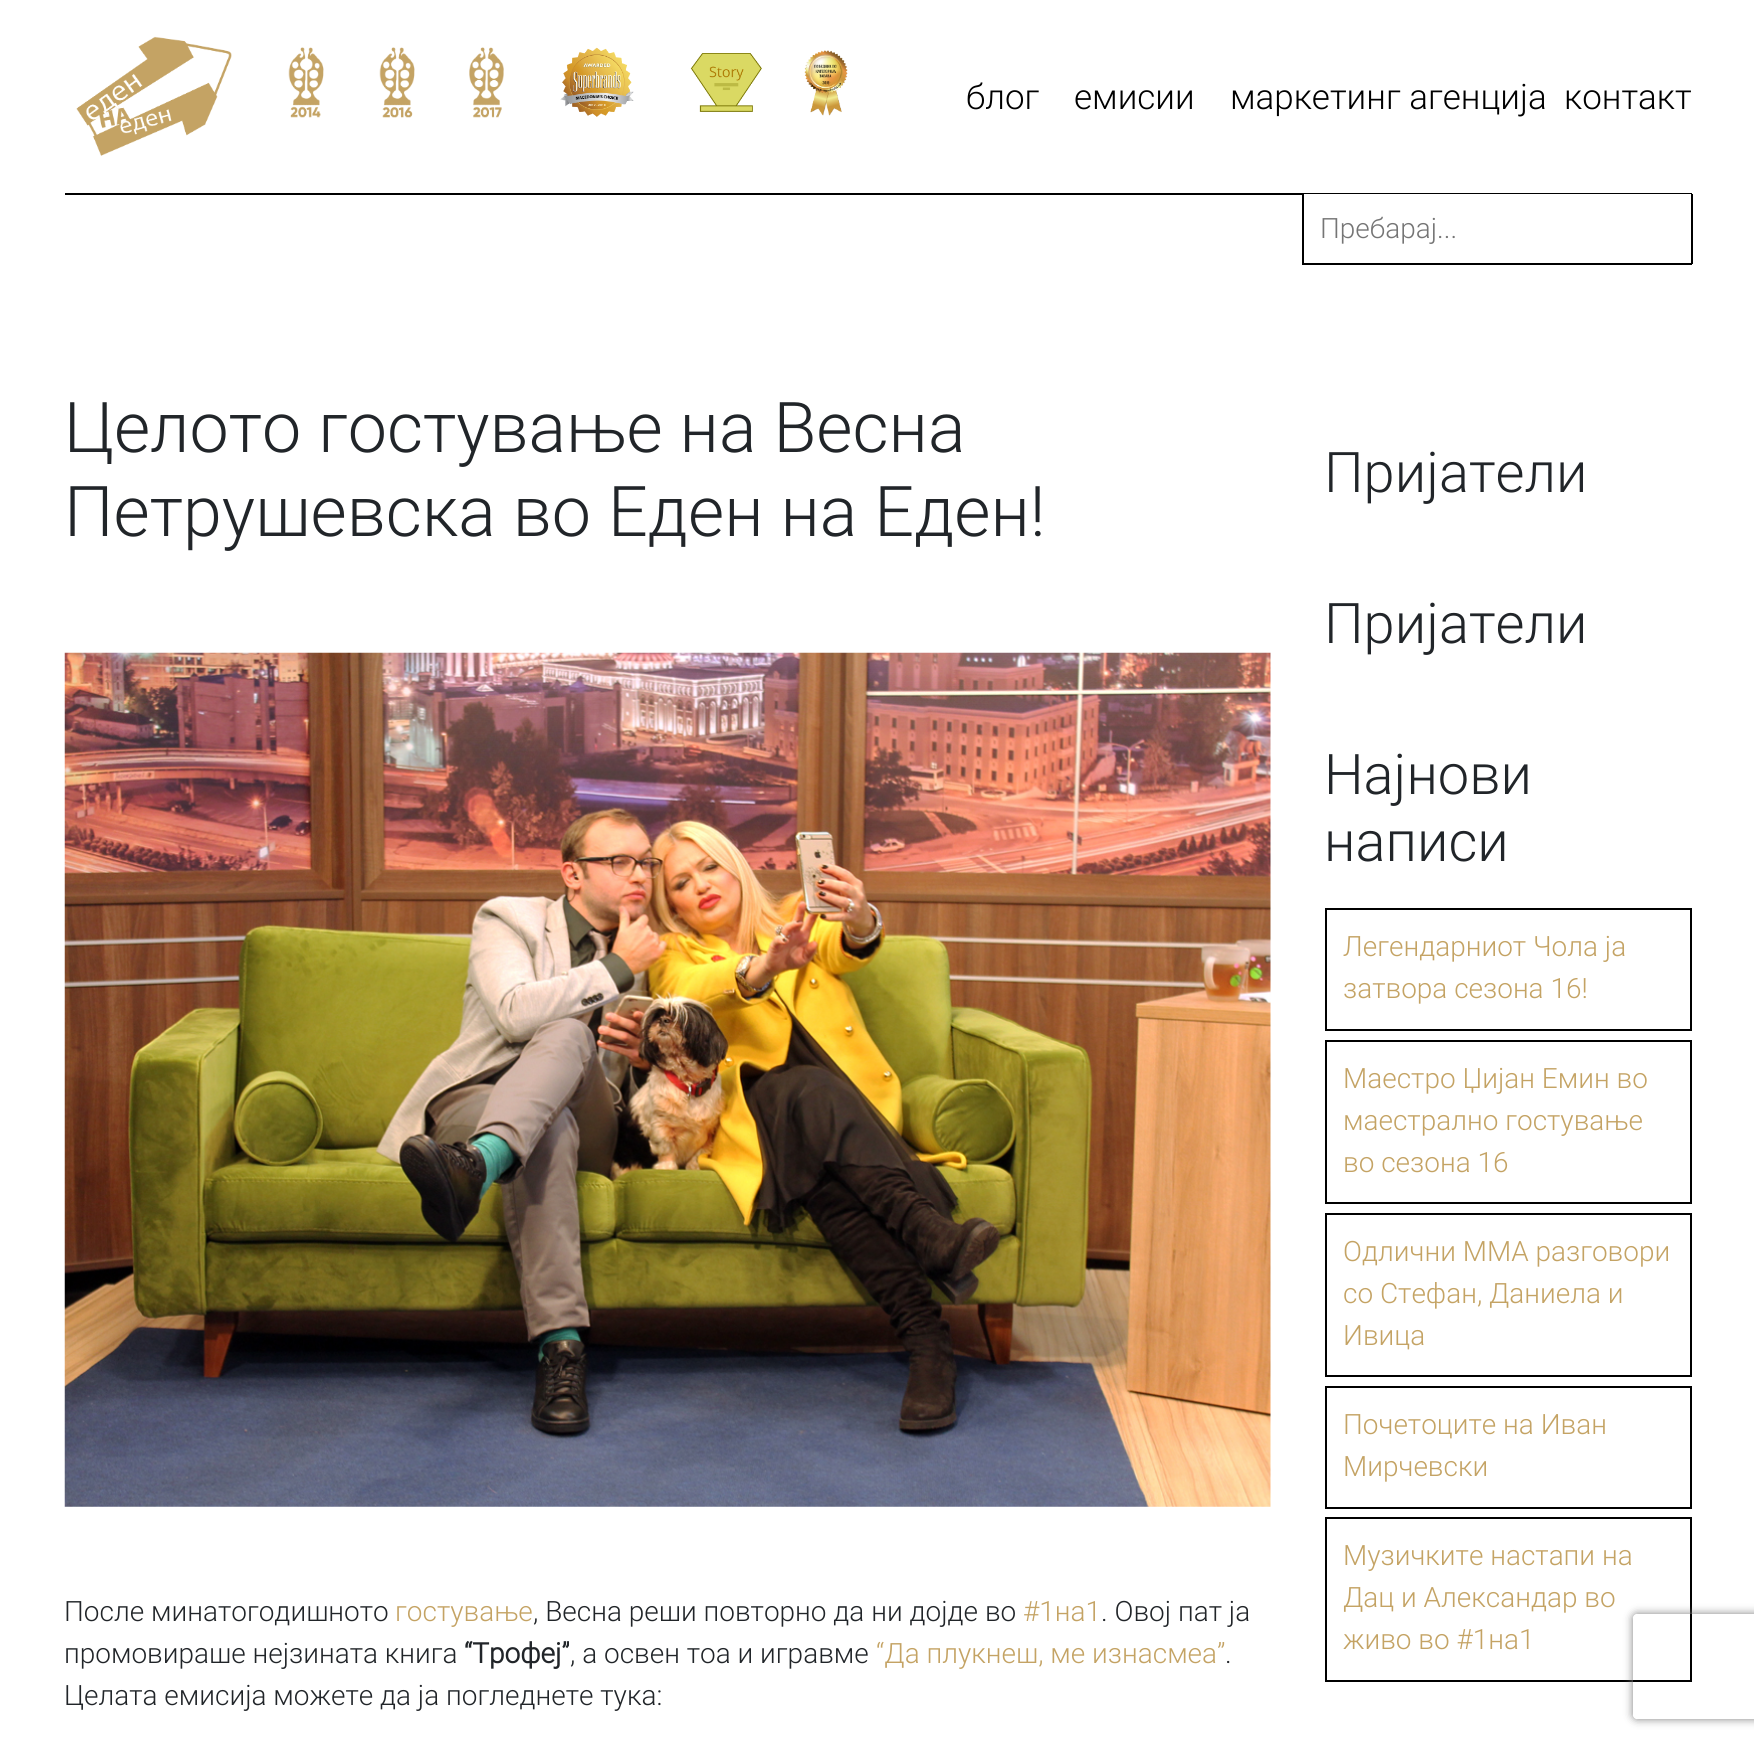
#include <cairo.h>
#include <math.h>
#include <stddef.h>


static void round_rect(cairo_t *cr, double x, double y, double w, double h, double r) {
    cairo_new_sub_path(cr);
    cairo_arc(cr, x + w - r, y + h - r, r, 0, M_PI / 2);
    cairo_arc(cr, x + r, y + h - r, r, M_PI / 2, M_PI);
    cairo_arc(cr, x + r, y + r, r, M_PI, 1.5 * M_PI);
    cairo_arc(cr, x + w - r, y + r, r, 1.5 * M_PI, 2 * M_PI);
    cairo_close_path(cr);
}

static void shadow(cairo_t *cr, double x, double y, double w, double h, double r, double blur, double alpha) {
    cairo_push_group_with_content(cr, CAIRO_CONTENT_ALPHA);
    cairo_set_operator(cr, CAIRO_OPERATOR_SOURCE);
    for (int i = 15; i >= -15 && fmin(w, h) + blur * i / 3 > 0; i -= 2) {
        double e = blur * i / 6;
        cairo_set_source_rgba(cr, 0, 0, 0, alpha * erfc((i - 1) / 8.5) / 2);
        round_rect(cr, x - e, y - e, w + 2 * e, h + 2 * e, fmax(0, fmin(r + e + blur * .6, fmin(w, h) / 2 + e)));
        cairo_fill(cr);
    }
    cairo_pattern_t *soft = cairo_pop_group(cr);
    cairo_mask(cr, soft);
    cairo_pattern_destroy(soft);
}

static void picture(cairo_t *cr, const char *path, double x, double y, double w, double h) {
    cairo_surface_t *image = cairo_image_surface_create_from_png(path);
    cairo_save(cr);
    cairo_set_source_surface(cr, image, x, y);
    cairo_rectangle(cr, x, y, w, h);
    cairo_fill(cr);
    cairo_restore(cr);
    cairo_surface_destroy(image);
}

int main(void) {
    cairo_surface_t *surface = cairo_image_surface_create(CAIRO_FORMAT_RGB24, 1754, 1743);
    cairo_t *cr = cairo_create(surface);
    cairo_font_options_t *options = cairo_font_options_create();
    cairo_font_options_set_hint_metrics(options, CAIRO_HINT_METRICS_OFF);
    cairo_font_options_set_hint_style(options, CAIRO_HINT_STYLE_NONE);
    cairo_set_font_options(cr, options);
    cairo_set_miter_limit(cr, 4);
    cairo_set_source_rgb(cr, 1, 1, 1);
    cairo_paint(cr);
    cairo_set_source_rgb(cr, 0, 0, 0);
    cairo_rectangle(cr, 65, 193, 1627, 2);
    cairo_fill(cr);
    picture(cr, "img1.png", 76, 36, 156, 120);
    picture(cr, "img2.png", 288, 47, 36, 71);
    picture(cr, "img3.png", 379, 47, 36, 71);
    picture(cr, "img4.png", 469, 47, 35, 71);
    picture(cr, "img5.png", 560, 47, 74, 70);
    picture(cr, "img6.png", 690, 53, 72, 59);
    picture(cr, "img7.png", 804, 50, 44, 66);
    cairo_select_font_face(cr, "Roboto Light", CAIRO_FONT_SLANT_NORMAL, CAIRO_FONT_WEIGHT_NORMAL);
    cairo_set_font_size(cr, 35);
    cairo_move_to(cr, 966, 109);
    cairo_show_text(cr, "блог");
    cairo_move_to(cr, 1074, 109);
    cairo_show_text(cr, "емисии");
    cairo_move_to(cr, 1230, 109);
    cairo_show_text(cr, "маркетинг агенција");
    cairo_move_to(cr, 1564, 109);
    cairo_show_text(cr, "контакт");
    cairo_set_source_rgb(cr, 1, 1, 1);
    cairo_rectangle(cr, 1304, 194, 387, 1);
    cairo_fill(cr);
    cairo_set_source_rgb(cr, 0, 0, 0);
    cairo_rectangle(cr, 1691, 194, 2, 70);
    cairo_fill(cr);
    cairo_rectangle(cr, 1302, 263, 390, 2);
    cairo_fill(cr);
    cairo_rectangle(cr, 1302, 194, 2, 70);
    cairo_fill(cr);
    cairo_set_font_size(cr, 28);
    cairo_set_source_rgb(cr, 0.459, 0.459, 0.459);
    cairo_move_to(cr, 1320, 238);
    cairo_show_text(cr, "Пребарај...");
    cairo_set_font_size(cr, 70);
    cairo_set_source_rgb(cr, 0.129, 0.145, 0.161);
    cairo_move_to(cr, 64, 452);
    cairo_show_text(cr, "Целото гостување на Весна");
    cairo_move_to(cr, 64, 536);
    cairo_show_text(cr, "Петрушевска во Еден на Еден!");
    picture(cr, "img8.png", 64, 652, 1207, 855);
    cairo_set_font_size(cr, 28);
    cairo_move_to(cr, 64, 1621);
    cairo_show_text(cr, "После минатогодишното");
    cairo_set_source_rgb(cr, 0.769, 0.639, 0.392);
    cairo_move_to(cr, 395, 1621);
    cairo_show_text(cr, "гостување");
    cairo_set_source_rgb(cr, 0.129, 0.145, 0.161);
    cairo_move_to(cr, 533, 1621);
    cairo_show_text(cr, ", Весна реши повторно да ни дојде во");
    cairo_set_source_rgb(cr, 0.769, 0.639, 0.392);
    cairo_move_to(cr, 1023, 1621);
    cairo_show_text(cr, "#1на1");
    cairo_set_source_rgb(cr, 0.129, 0.145, 0.161);
    cairo_move_to(cr, 1101, 1621);
    cairo_show_text(cr, ". Овој пат ја");
    cairo_move_to(cr, 64, 1663);
    cairo_show_text(cr, "промовираше нејзината книга");
    cairo_select_font_face(cr, "Roboto", CAIRO_FONT_SLANT_NORMAL, CAIRO_FONT_WEIGHT_BOLD);
    cairo_move_to(cr, 464, 1663);
    cairo_show_text(cr, "“Трофеј”");
    cairo_select_font_face(cr, "Roboto Light", CAIRO_FONT_SLANT_NORMAL, CAIRO_FONT_WEIGHT_NORMAL);
    cairo_move_to(cr, 570, 1663);
    cairo_show_text(cr, ", а освен тоа и игравме");
    cairo_set_source_rgb(cr, 0.769, 0.639, 0.392);
    cairo_move_to(cr, 876, 1663);
    cairo_show_text(cr, "“Да плукнеш, ме изнасмеа”");
    cairo_set_source_rgb(cr, 0.129, 0.145, 0.161);
    cairo_move_to(cr, 1225, 1663);
    cairo_show_text(cr, ".");
    cairo_move_to(cr, 64, 1705);
    cairo_show_text(cr, "Целата емисија можете да ја погледнете тука:");
    cairo_set_font_size(cr, 56);
    cairo_move_to(cr, 1324, 492);
    cairo_show_text(cr, "Пријатели");
    cairo_move_to(cr, 1324, 643);
    cairo_show_text(cr, "Пријатели");
    cairo_move_to(cr, 1324, 794);
    cairo_show_text(cr, "Најнови");
    cairo_move_to(cr, 1324, 861);
    cairo_show_text(cr, "написи");
    cairo_rectangle(cr, 1326, 909, 365, 121);
    cairo_set_source_rgb(cr, 0, 0, 0);
    cairo_stroke(cr);
    cairo_set_font_size(cr, 28);
    cairo_set_source_rgb(cr, 0.769, 0.639, 0.392);
    cairo_move_to(cr, 1343, 956);
    cairo_show_text(cr, "Легендарниот Чола ја");
    cairo_move_to(cr, 1343, 998);
    cairo_show_text(cr, "затвора сезона 16!");
    cairo_rectangle(cr, 1326, 1041, 365, 162);
    cairo_set_source_rgb(cr, 0, 0, 0);
    cairo_stroke(cr);
    cairo_set_source_rgb(cr, 0.769, 0.639, 0.392);
    cairo_move_to(cr, 1343, 1088);
    cairo_show_text(cr, "Маестро Џијан Емин во");
    cairo_move_to(cr, 1343, 1130);
    cairo_show_text(cr, "маестрално гостување");
    cairo_move_to(cr, 1343, 1172);
    cairo_show_text(cr, "во сезона 16");
    cairo_rectangle(cr, 1326, 1214, 365, 162);
    cairo_set_source_rgb(cr, 0, 0, 0);
    cairo_stroke(cr);
    cairo_set_source_rgb(cr, 0.769, 0.639, 0.392);
    cairo_move_to(cr, 1343, 1261);
    cairo_show_text(cr, "Одлични ММА разговори");
    cairo_move_to(cr, 1343, 1303);
    cairo_show_text(cr, "со Стефан, Даниела и");
    cairo_move_to(cr, 1343, 1345);
    cairo_show_text(cr, "Ивица");
    cairo_rectangle(cr, 1326, 1387, 365, 121);
    cairo_set_source_rgb(cr, 0, 0, 0);
    cairo_stroke(cr);
    cairo_set_source_rgb(cr, 0.769, 0.639, 0.392);
    cairo_move_to(cr, 1343, 1434);
    cairo_show_text(cr, "Почетоците на Иван");
    cairo_move_to(cr, 1343, 1476);
    cairo_show_text(cr, "Мирчевски");
    cairo_rectangle(cr, 1326, 1518, 365, 163);
    cairo_set_source_rgb(cr, 0, 0, 0);
    cairo_stroke(cr);
    cairo_set_source_rgb(cr, 0.769, 0.639, 0.392);
    cairo_move_to(cr, 1343, 1565);
    cairo_show_text(cr, "Музичките настапи на");
    cairo_move_to(cr, 1343, 1607);
    cairo_show_text(cr, "Дац и Александар во");
    cairo_move_to(cr, 1343, 1649);
    cairo_show_text(cr, "живо во #1на1");
    cairo_save(cr);
    cairo_set_fill_rule(cr, CAIRO_FILL_RULE_EVEN_ODD);
    cairo_new_path(cr);
    cairo_move_to(cr, 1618, 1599);
    cairo_line_to(cr, 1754, 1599);
    cairo_line_to(cr, 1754, 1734);
    cairo_line_to(cr, 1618, 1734);
    cairo_close_path(cr);
    cairo_move_to(cr, 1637, 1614);
    cairo_line_to(cr, 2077, 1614);
    cairo_curve_to(cr, 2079, 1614, 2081, 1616, 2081, 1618);
    cairo_line_to(cr, 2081, 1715);
    cairo_curve_to(cr, 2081, 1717, 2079, 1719, 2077, 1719);
    cairo_line_to(cr, 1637, 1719);
    cairo_curve_to(cr, 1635, 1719, 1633, 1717, 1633, 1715);
    cairo_line_to(cr, 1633, 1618);
    cairo_curve_to(cr, 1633, 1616, 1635, 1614, 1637, 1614);
    cairo_close_path(cr);
    cairo_clip(cr);
    cairo_set_source_rgb(cr, 0.502, 0.502, 0.502);
    shadow(cr, 1633, 1614, 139, 105, 4, 4.5, 1);
    cairo_restore(cr);
    cairo_surface_write_to_png(surface, "page.png");
    cairo_font_options_destroy(options);
    cairo_destroy(cr);
    cairo_surface_destroy(surface);
    return 0;
}
